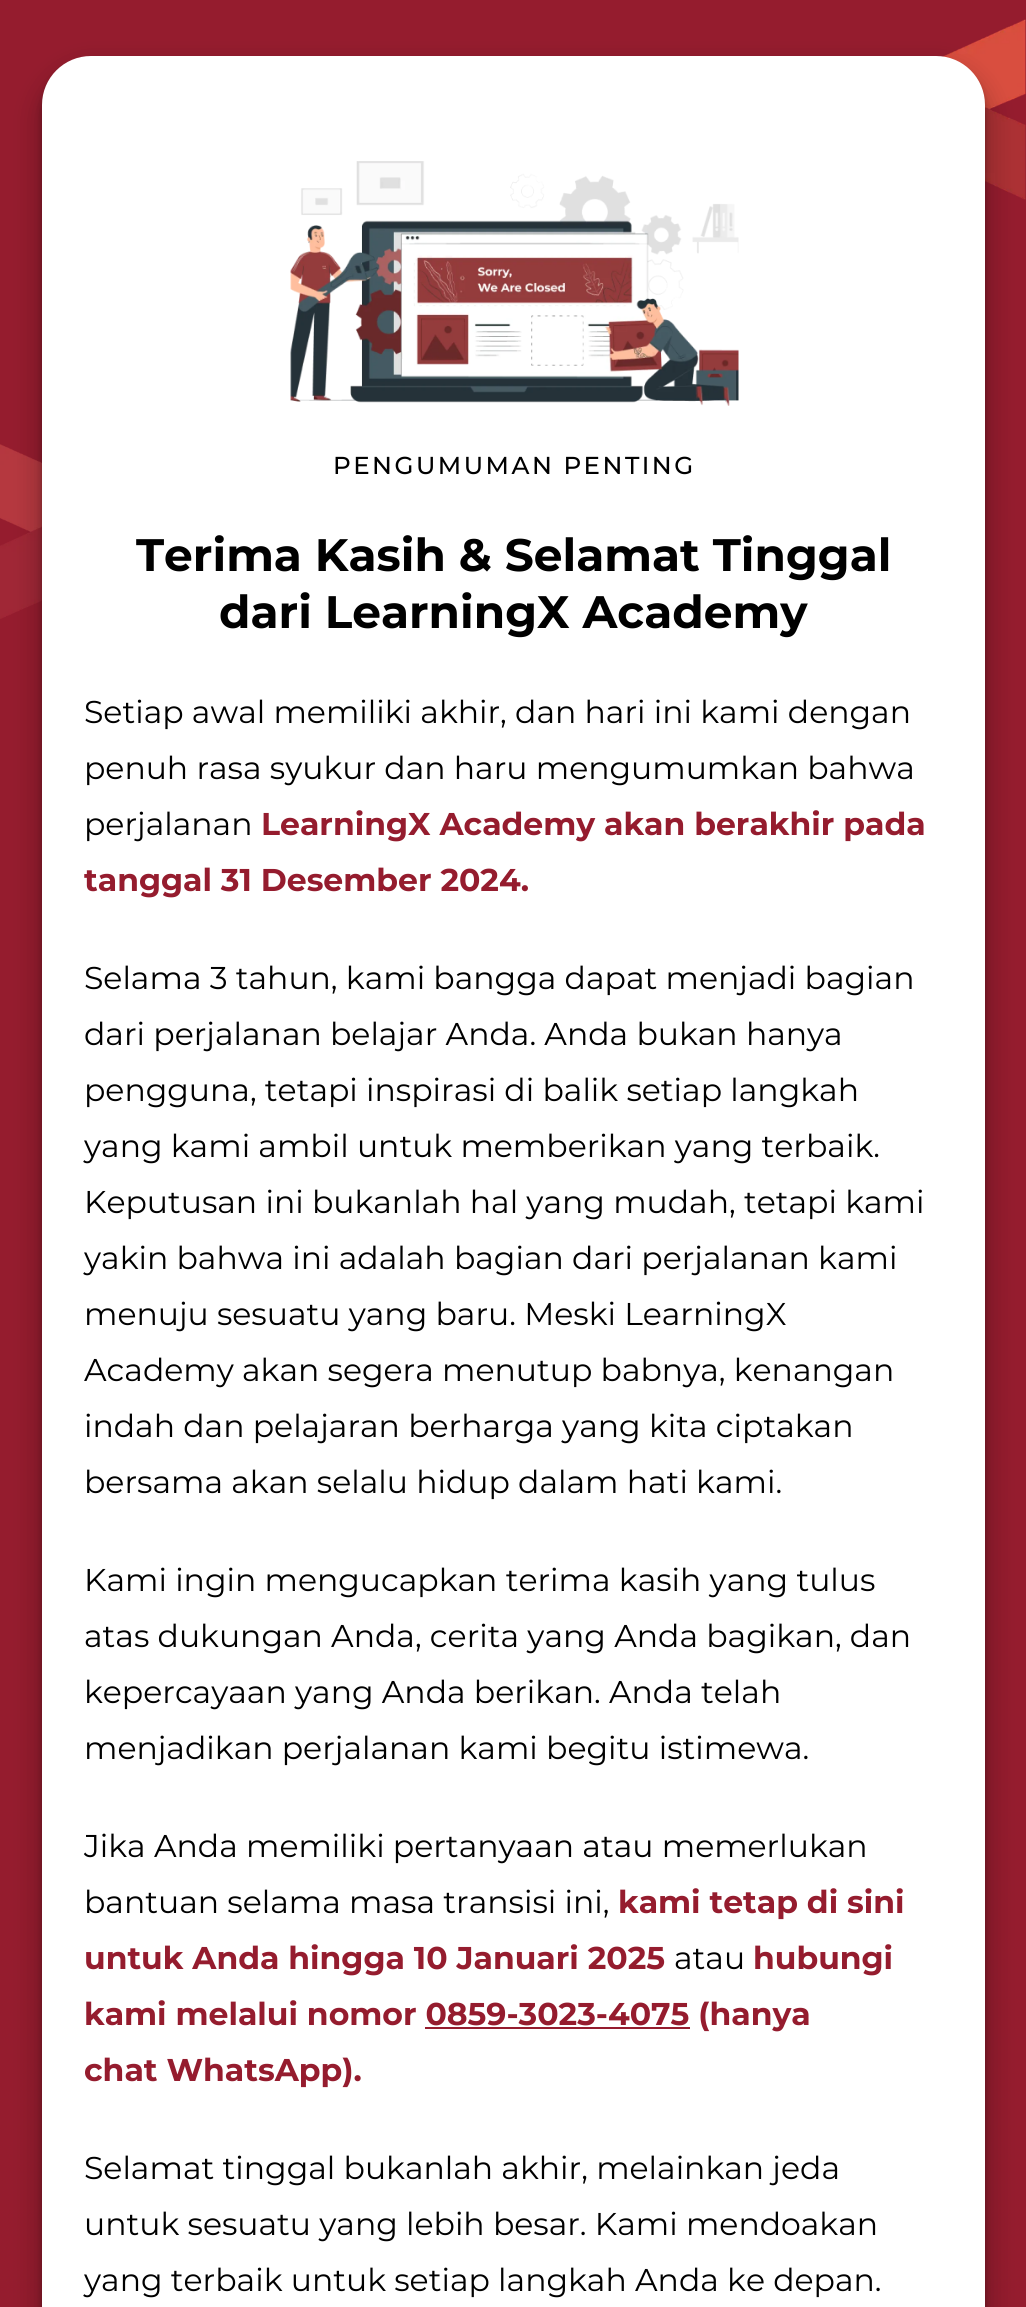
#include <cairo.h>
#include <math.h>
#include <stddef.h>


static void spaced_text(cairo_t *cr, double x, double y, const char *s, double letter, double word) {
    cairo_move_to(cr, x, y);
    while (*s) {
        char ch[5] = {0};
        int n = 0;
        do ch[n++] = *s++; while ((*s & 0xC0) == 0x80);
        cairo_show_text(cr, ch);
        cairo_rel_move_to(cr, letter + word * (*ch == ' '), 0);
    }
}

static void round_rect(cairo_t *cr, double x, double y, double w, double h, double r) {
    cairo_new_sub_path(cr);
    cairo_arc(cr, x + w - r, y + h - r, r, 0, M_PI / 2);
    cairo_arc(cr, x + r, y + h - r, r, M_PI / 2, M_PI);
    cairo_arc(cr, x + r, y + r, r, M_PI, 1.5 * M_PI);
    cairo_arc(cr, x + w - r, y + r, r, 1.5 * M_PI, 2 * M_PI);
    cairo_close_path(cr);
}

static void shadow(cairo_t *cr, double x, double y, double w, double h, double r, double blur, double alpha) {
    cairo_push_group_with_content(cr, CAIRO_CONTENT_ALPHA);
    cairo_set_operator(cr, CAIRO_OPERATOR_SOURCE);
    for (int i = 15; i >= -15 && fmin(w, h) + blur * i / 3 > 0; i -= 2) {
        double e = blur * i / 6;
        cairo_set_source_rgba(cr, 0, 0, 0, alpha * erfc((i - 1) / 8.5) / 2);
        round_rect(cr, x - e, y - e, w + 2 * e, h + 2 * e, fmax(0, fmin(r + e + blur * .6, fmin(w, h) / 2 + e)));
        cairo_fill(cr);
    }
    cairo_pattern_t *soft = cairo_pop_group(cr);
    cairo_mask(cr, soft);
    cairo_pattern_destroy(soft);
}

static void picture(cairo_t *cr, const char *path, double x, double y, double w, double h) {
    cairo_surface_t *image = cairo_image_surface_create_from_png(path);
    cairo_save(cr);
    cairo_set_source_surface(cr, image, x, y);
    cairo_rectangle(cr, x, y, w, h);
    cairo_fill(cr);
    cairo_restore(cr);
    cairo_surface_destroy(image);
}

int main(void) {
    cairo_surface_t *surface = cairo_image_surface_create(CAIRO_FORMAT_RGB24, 1026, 2307);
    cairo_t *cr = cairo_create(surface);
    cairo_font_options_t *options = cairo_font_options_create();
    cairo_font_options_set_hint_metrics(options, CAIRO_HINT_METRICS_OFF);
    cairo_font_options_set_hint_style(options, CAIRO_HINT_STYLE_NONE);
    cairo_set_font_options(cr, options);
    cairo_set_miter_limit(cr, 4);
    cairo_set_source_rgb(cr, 0.584, 0.11, 0.18);
    cairo_paint(cr);
    picture(cr, "img1.png", 0, 19, 1026, 600);
    cairo_set_source_rgb(cr, 0, 0, 0);
    shadow(cr, 42, 63, 943, 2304, 49, 3.5, 0.3);
    shadow(cr, 32, 60, 964, 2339, 60, 10.5, 0.15);
    cairo_set_source_rgb(cr, 1, 1, 1);
    round_rect(cr, 42, 56, 943, 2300, 49);
    cairo_fill(cr);
    picture(cr, "img2.png", 290, 161, 449, 245);
    cairo_select_font_face(cr, "Montserrat Medium", CAIRO_FONT_SLANT_NORMAL, CAIRO_FONT_WEIGHT_NORMAL);
    cairo_set_font_size(cr, 24.5);
    cairo_set_source_rgb(cr, 0, 0, 0);
    spaced_text(cr, 333, 474, "PENGUMUMAN PENTING", 2.5, 0);
    cairo_select_font_face(cr, "Montserrat", CAIRO_FONT_SLANT_NORMAL, CAIRO_FONT_WEIGHT_BOLD);
    cairo_set_font_size(cr, 45.5);
    cairo_move_to(cr, 136, 571);
    cairo_show_text(cr, "Terima Kasih & Selamat Tinggal");
    cairo_move_to(cr, 219, 628);
    cairo_show_text(cr, "dari LearningX Academy");
    cairo_select_font_face(cr, "Montserrat", CAIRO_FONT_SLANT_NORMAL, CAIRO_FONT_WEIGHT_NORMAL);
    cairo_set_font_size(cr, 31.5);
    cairo_move_to(cr, 84, 723);
    cairo_show_text(cr, "Setiap awal memiliki akhir, dan hari ini kami dengan");
    cairo_move_to(cr, 84, 779);
    cairo_show_text(cr, "penuh rasa syukur dan haru mengumumkan bahwa");
    cairo_move_to(cr, 84, 835);
    cairo_show_text(cr, "perjalanan");
    cairo_select_font_face(cr, "Montserrat", CAIRO_FONT_SLANT_NORMAL, CAIRO_FONT_WEIGHT_BOLD);
    cairo_set_source_rgb(cr, 0.584, 0.11, 0.18);
    cairo_move_to(cr, 261, 835);
    cairo_show_text(cr, "LearningX Academy akan berakhir pada");
    cairo_move_to(cr, 84, 891);
    cairo_show_text(cr, "tanggal 31 Desember 2024.");
    cairo_select_font_face(cr, "Montserrat", CAIRO_FONT_SLANT_NORMAL, CAIRO_FONT_WEIGHT_NORMAL);
    cairo_set_source_rgb(cr, 0, 0, 0);
    cairo_move_to(cr, 84, 989);
    cairo_show_text(cr, "Selama 3 tahun, kami bangga dapat menjadi bagian");
    cairo_move_to(cr, 84, 1045);
    cairo_show_text(cr, "dari perjalanan belajar Anda. Anda bukan hanya");
    cairo_move_to(cr, 84, 1101);
    cairo_show_text(cr, "pengguna, tetapi inspirasi di balik setiap langkah");
    cairo_move_to(cr, 84, 1157);
    cairo_show_text(cr, "yang kami ambil untuk memberikan yang terbaik.");
    cairo_move_to(cr, 84, 1213);
    cairo_show_text(cr, "Keputusan ini bukanlah hal yang mudah, tetapi kami");
    cairo_move_to(cr, 84, 1269);
    cairo_show_text(cr, "yakin bahwa ini adalah bagian dari perjalanan kami");
    cairo_move_to(cr, 84, 1325);
    cairo_show_text(cr, "menuju sesuatu yang baru. Meski LearningX");
    cairo_move_to(cr, 84, 1381);
    cairo_show_text(cr, "Academy akan segera menutup babnya, kenangan");
    cairo_move_to(cr, 84, 1437);
    cairo_show_text(cr, "indah dan pelajaran berharga yang kita ciptakan");
    cairo_move_to(cr, 84, 1493);
    cairo_show_text(cr, "bersama akan selalu hidup dalam hati kami.");
    cairo_move_to(cr, 84, 1591);
    cairo_show_text(cr, "Kami ingin mengucapkan terima kasih yang tulus");
    cairo_move_to(cr, 84, 1647);
    cairo_show_text(cr, "atas dukungan Anda, cerita yang Anda bagikan, dan");
    cairo_move_to(cr, 84, 1703);
    cairo_show_text(cr, "kepercayaan yang Anda berikan. Anda telah");
    cairo_move_to(cr, 84, 1759);
    cairo_show_text(cr, "menjadikan perjalanan kami begitu istimewa.");
    cairo_move_to(cr, 84, 1857);
    cairo_show_text(cr, "Jika Anda memiliki pertanyaan atau memerlukan");
    cairo_move_to(cr, 84, 1913);
    cairo_show_text(cr, "bantuan selama masa transisi ini,");
    cairo_select_font_face(cr, "Montserrat", CAIRO_FONT_SLANT_NORMAL, CAIRO_FONT_WEIGHT_BOLD);
    cairo_set_source_rgb(cr, 0.584, 0.11, 0.18);
    cairo_move_to(cr, 618, 1913);
    cairo_show_text(cr, "kami tetap di sini");
    cairo_move_to(cr, 84, 1969);
    cairo_show_text(cr, "untuk Anda hingga 10 Januari 2025");
    cairo_select_font_face(cr, "Montserrat", CAIRO_FONT_SLANT_NORMAL, CAIRO_FONT_WEIGHT_NORMAL);
    cairo_set_source_rgb(cr, 0, 0, 0);
    cairo_move_to(cr, 674, 1969);
    cairo_show_text(cr, "atau");
    cairo_select_font_face(cr, "Montserrat", CAIRO_FONT_SLANT_NORMAL, CAIRO_FONT_WEIGHT_BOLD);
    cairo_set_source_rgb(cr, 0.584, 0.11, 0.18);
    cairo_move_to(cr, 753, 1969);
    cairo_show_text(cr, "hubungi");
    cairo_move_to(cr, 84, 2025);
    cairo_show_text(cr, "kami melalui nomor 0859-3023-4075 (hanya");
    cairo_rectangle(cr, 425, 2027, 265, 2);
    cairo_fill(cr);
    cairo_move_to(cr, 84, 2081);
    cairo_show_text(cr, "chat WhatsApp).");
    cairo_select_font_face(cr, "Montserrat", CAIRO_FONT_SLANT_NORMAL, CAIRO_FONT_WEIGHT_NORMAL);
    cairo_set_source_rgb(cr, 0, 0, 0);
    cairo_move_to(cr, 84, 2179);
    cairo_show_text(cr, "Selamat tinggal bukanlah akhir, melainkan jeda");
    cairo_move_to(cr, 84, 2235);
    cairo_show_text(cr, "untuk sesuatu yang lebih besar. Kami mendoakan");
    cairo_move_to(cr, 84, 2291);
    cairo_show_text(cr, "yang terbaik untuk setiap langkah Anda ke depan.");
    cairo_surface_write_to_png(surface, "page.png");
    cairo_font_options_destroy(options);
    cairo_destroy(cr);
    cairo_surface_destroy(surface);
    return 0;
}
